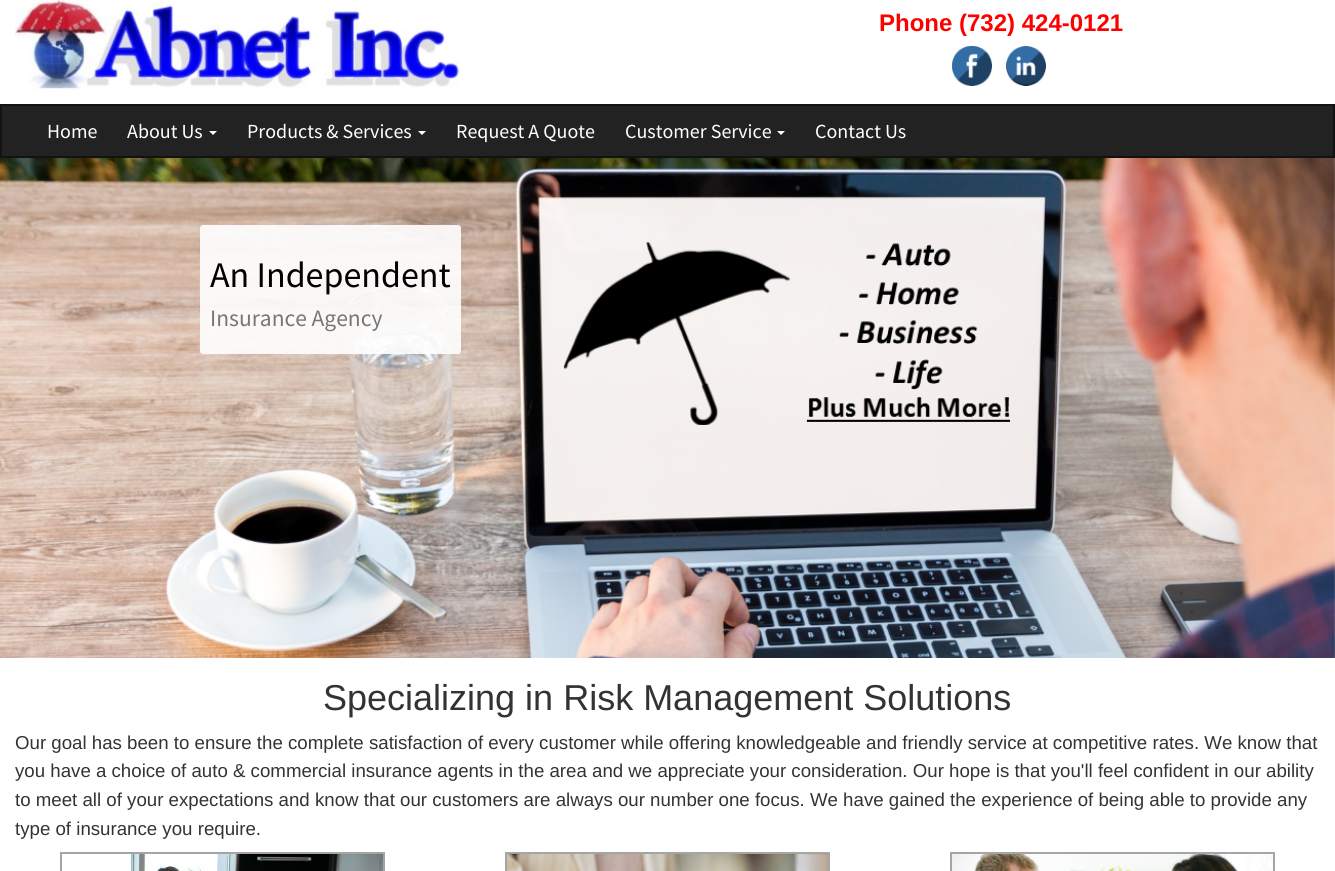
#include <cairo.h>
#include <math.h>
#include <stddef.h>


static void round_rect(cairo_t *cr, double x, double y, double w, double h, double r) {
    cairo_new_sub_path(cr);
    cairo_arc(cr, x + w - r, y + h - r, r, 0, M_PI / 2);
    cairo_arc(cr, x + r, y + h - r, r, M_PI / 2, M_PI);
    cairo_arc(cr, x + r, y + r, r, M_PI, 1.5 * M_PI);
    cairo_arc(cr, x + w - r, y + r, r, 1.5 * M_PI, 2 * M_PI);
    cairo_close_path(cr);
}

static void picture(cairo_t *cr, const char *path, double x, double y, double w, double h) {
    cairo_surface_t *image = cairo_image_surface_create_from_png(path);
    cairo_save(cr);
    cairo_set_source_surface(cr, image, x, y);
    cairo_rectangle(cr, x, y, w, h);
    cairo_fill(cr);
    cairo_restore(cr);
    cairo_surface_destroy(image);
}

int main(void) {
    cairo_surface_t *surface = cairo_image_surface_create(CAIRO_FORMAT_RGB24, 1335, 871);
    cairo_t *cr = cairo_create(surface);
    cairo_font_options_t *options = cairo_font_options_create();
    cairo_font_options_set_hint_metrics(options, CAIRO_HINT_METRICS_OFF);
    cairo_font_options_set_hint_style(options, CAIRO_HINT_STYLE_NONE);
    cairo_set_font_options(cr, options);
    cairo_set_miter_limit(cr, 4);
    cairo_set_source_rgb(cr, 1, 1, 1);
    cairo_paint(cr);
    picture(cr, "img1.png", 15, 0, 445, 92);
    cairo_select_font_face(cr, "Liberation Sans", CAIRO_FONT_SLANT_NORMAL, CAIRO_FONT_WEIGHT_BOLD);
    cairo_set_font_size(cr, 24);
    cairo_set_source_rgb(cr, 1, 0, 0);
    cairo_move_to(cr, 879, 31);
    cairo_show_text(cr, "Phone (732) 424-0121");
    picture(cr, "img2.png", 952, 46, 40, 40);
    picture(cr, "img3.png", 1006, 46, 40, 40);
    cairo_set_source_rgb(cr, 0.133, 0.133, 0.133);
    cairo_rectangle(cr, 2, 106, 1331, 50);
    cairo_fill(cr);
    cairo_rectangle(cr, 0.5, 104.5, 1334, 53);
    cairo_set_source_rgb(cr, 0.071, 0.071, 0.071);
    cairo_set_line_width(cr, 1);
    cairo_stroke(cr);
    cairo_rectangle(cr, 1.5, 105.5, 1332, 51);
    cairo_stroke(cr);
    cairo_select_font_face(cr, "Source Sans Pro", CAIRO_FONT_SLANT_NORMAL, CAIRO_FONT_WEIGHT_NORMAL);
    cairo_set_font_size(cr, 20);
    cairo_set_source_rgb(cr, 1, 1, 1);
    cairo_move_to(cr, 47, 138);
    cairo_show_text(cr, "Home");
    cairo_move_to(cr, 127, 138);
    cairo_show_text(cr, "About Us");
    cairo_new_path(cr);
    cairo_move_to(cr, 209, 131);
    cairo_line_to(cr, 217, 131);
    cairo_line_to(cr, 213, 135);
    cairo_close_path(cr);
    cairo_fill(cr);
    cairo_move_to(cr, 247, 138);
    cairo_show_text(cr, "Products & Services");
    cairo_new_path(cr);
    cairo_move_to(cr, 418, 131);
    cairo_line_to(cr, 426, 131);
    cairo_line_to(cr, 422, 135);
    cairo_close_path(cr);
    cairo_fill(cr);
    cairo_move_to(cr, 456, 138);
    cairo_show_text(cr, "Request A Quote");
    cairo_move_to(cr, 625, 138);
    cairo_show_text(cr, "Customer Service");
    cairo_new_path(cr);
    cairo_move_to(cr, 777, 131);
    cairo_line_to(cr, 785, 131);
    cairo_line_to(cr, 781, 135);
    cairo_close_path(cr);
    cairo_fill(cr);
    cairo_move_to(cr, 815, 138);
    cairo_show_text(cr, "Contact Us");
    picture(cr, "img4.png", 0, 158, 1335, 500);
    cairo_set_source_rgba(cr, 1, 1, 1, 0.9);
    round_rect(cr, 200, 225, 261, 129, 3);
    cairo_fill(cr);
    cairo_set_font_size(cr, 36);
    cairo_set_source_rgb(cr, 0, 0, 0);
    cairo_move_to(cr, 210, 287);
    cairo_show_text(cr, "An Independent");
    cairo_set_font_size(cr, 23.5);
    cairo_set_source_rgb(cr, 0.467, 0.467, 0.467);
    cairo_move_to(cr, 210, 326);
    cairo_show_text(cr, "Insurance Agency");
    cairo_select_font_face(cr, "Liberation Sans", CAIRO_FONT_SLANT_NORMAL, CAIRO_FONT_WEIGHT_NORMAL);
    cairo_set_font_size(cr, 36);
    cairo_set_source_rgb(cr, 0.2, 0.2, 0.2);
    cairo_move_to(cr, 323, 710);
    cairo_show_text(cr, "Specializing in Risk Management Solutions");
    cairo_set_font_size(cr, 18.67);
    cairo_move_to(cr, 15, 749);
    cairo_show_text(cr, "Our goal has been to ensure the complete satisfaction of every customer while offering knowledgeable and friendly service at competitive rates. We know that");
    cairo_move_to(cr, 15, 777);
    cairo_show_text(cr, "you have a choice of auto & commercial insurance agents in the area and we appreciate your consideration. Our hope is that you'll feel confident in our ability");
    cairo_move_to(cr, 15, 806);
    cairo_show_text(cr, "to meet all of your expectations and know that our customers are always our number one focus. We have gained the experience of being able to provide any");
    cairo_move_to(cr, 15, 835);
    cairo_show_text(cr, "type of insurance you require.");
    cairo_rectangle(cr, 61, 853, 323, 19);
    cairo_set_source_rgb(cr, 0.647, 0.647, 0.647);
    cairo_set_line_width(cr, 2);
    cairo_stroke(cr);
    picture(cr, "img5.png", 130, 854, 253, 17);
    cairo_rectangle(cr, 506, 853, 323, 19);
    cairo_stroke(cr);
    picture(cr, "img6.png", 507, 854, 321, 17);
    cairo_rectangle(cr, 951, 853, 323, 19);
    cairo_stroke(cr);
    picture(cr, "img7.png", 952, 854, 321, 17);
    cairo_surface_write_to_png(surface, "page.png");
    cairo_font_options_destroy(options);
    cairo_destroy(cr);
    cairo_surface_destroy(surface);
    return 0;
}
